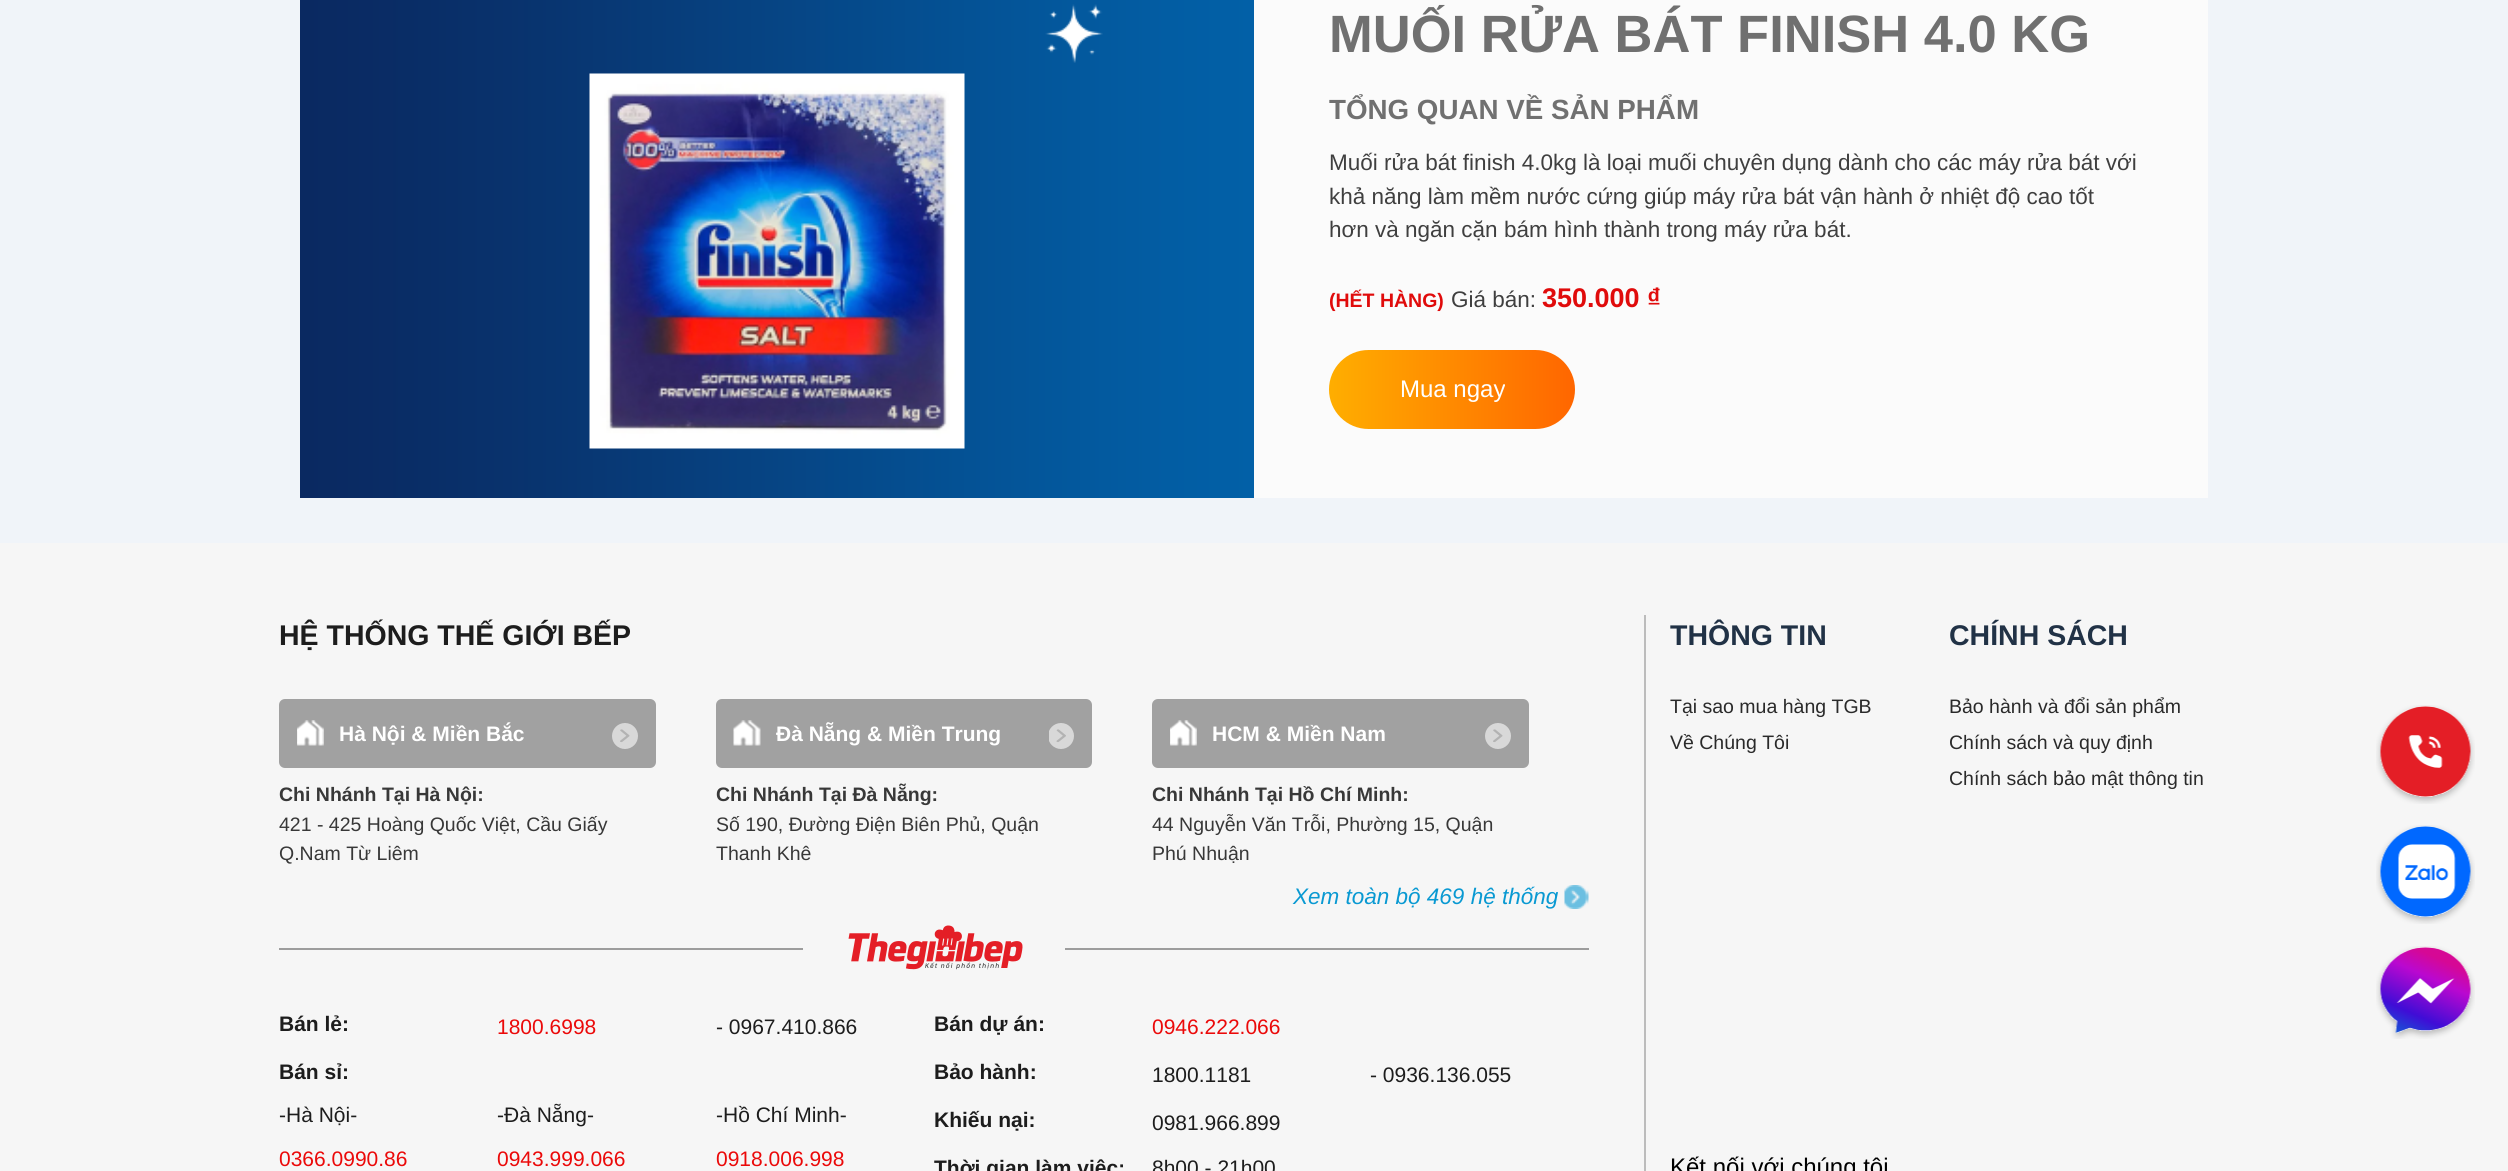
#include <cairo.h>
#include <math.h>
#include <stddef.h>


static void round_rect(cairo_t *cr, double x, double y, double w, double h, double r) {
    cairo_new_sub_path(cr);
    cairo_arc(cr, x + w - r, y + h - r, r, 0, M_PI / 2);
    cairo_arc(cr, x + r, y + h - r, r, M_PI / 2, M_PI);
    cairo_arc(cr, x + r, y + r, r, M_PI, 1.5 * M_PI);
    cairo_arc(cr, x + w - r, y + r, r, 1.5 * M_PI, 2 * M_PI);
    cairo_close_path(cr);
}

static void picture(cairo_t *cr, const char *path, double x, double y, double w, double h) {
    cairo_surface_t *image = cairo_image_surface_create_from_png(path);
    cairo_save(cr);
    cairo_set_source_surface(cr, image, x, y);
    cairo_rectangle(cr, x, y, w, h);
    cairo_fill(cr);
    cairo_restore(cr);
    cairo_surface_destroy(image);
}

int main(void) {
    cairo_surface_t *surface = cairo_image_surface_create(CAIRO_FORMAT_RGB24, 2508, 1171);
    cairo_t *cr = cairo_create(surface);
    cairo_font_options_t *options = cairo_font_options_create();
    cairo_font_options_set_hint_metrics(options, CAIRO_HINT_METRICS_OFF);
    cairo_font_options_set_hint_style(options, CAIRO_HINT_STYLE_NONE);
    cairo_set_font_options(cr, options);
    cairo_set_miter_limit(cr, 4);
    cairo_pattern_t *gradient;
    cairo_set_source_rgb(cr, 0.941, 0.957, 0.973);
    cairo_paint(cr);
    picture(cr, "img1.png", 300, 0, 954, 498);
    picture(cr, "img2.png", 1045, 4, 58, 59);
    picture(cr, "img3.png", 589, 73, 376, 376);
    cairo_set_source_rgb(cr, 0.984, 0.984, 0.984);
    cairo_rectangle(cr, 1254, 0, 954, 498);
    cairo_fill(cr);
    cairo_select_font_face(cr, "Liberation Sans", CAIRO_FONT_SLANT_NORMAL, CAIRO_FONT_WEIGHT_BOLD);
    cairo_set_font_size(cr, 52.5);
    cairo_set_source_rgb(cr, 0.439, 0.439, 0.439);
    cairo_move_to(cr, 1329, 52);
    cairo_show_text(cr, "MUỐI RỬA BÁT FINISH 4.0 KG");
    cairo_set_font_size(cr, 27.75);
    cairo_move_to(cr, 1329, 119);
    cairo_show_text(cr, "TỔNG QUAN VỀ SẢN PHẨM");
    cairo_select_font_face(cr, "Liberation Sans", CAIRO_FONT_SLANT_NORMAL, CAIRO_FONT_WEIGHT_NORMAL);
    cairo_set_font_size(cr, 22.5);
    cairo_set_source_rgb(cr, 0.247, 0.247, 0.247);
    cairo_move_to(cr, 1329, 170);
    cairo_show_text(cr, "Muối rửa bát finish 4.0kg là loại muối chuyên dụng dành cho các máy rửa bát với");
    cairo_move_to(cr, 1329, 204);
    cairo_show_text(cr, "khả năng làm mềm nước cứng giúp máy rửa bát vận hành ở nhiệt độ cao tốt");
    cairo_move_to(cr, 1329, 237);
    cairo_show_text(cr, "hơn và ngăn cặn bám hình thành trong máy rửa bát.");
    cairo_select_font_face(cr, "Liberation Sans", CAIRO_FONT_SLANT_NORMAL, CAIRO_FONT_WEIGHT_BOLD);
    cairo_set_font_size(cr, 19.5);
    cairo_set_source_rgb(cr, 0.878, 0.043, 0.043);
    cairo_move_to(cr, 1329, 307);
    cairo_show_text(cr, "(HẾT HÀNG)");
    cairo_select_font_face(cr, "Liberation Sans", CAIRO_FONT_SLANT_NORMAL, CAIRO_FONT_WEIGHT_NORMAL);
    cairo_set_font_size(cr, 22.5);
    cairo_set_source_rgb(cr, 0.247, 0.247, 0.247);
    cairo_move_to(cr, 1451, 307);
    cairo_show_text(cr, "Giá bán:");
    cairo_select_font_face(cr, "Liberation Sans", CAIRO_FONT_SLANT_NORMAL, CAIRO_FONT_WEIGHT_BOLD);
    cairo_set_font_size(cr, 27);
    cairo_set_source_rgb(cr, 0.878, 0.043, 0.043);
    cairo_move_to(cr, 1542, 307);
    cairo_show_text(cr, "350.000 ₫");
    gradient = cairo_pattern_create_linear(1329, 389, 1575, 389);
    cairo_pattern_add_color_stop_rgba(gradient, 0, 1, 0.682, 0, 1);
    cairo_pattern_add_color_stop_rgba(gradient, 1, 1, 0.4, 0, 1);
    cairo_set_source(cr, gradient);
    cairo_pattern_destroy(gradient);
    round_rect(cr, 1329, 350, 246, 79, 39.5);
    cairo_fill(cr);
    cairo_select_font_face(cr, "Liberation Sans", CAIRO_FONT_SLANT_NORMAL, CAIRO_FONT_WEIGHT_NORMAL);
    cairo_set_font_size(cr, 24);
    cairo_set_source_rgb(cr, 1, 1, 1);
    cairo_move_to(cr, 1400, 397);
    cairo_show_text(cr, "Mua ngay");
    cairo_set_source_rgb(cr, 0.961, 0.961, 0.961);
    cairo_rectangle(cr, 0, 543, 2508, 628);
    cairo_fill(cr);
    cairo_select_font_face(cr, "Liberation Sans", CAIRO_FONT_SLANT_NORMAL, CAIRO_FONT_WEIGHT_BOLD);
    cairo_set_font_size(cr, 28.5);
    cairo_set_source_rgb(cr, 0.114, 0.114, 0.114);
    cairo_move_to(cr, 279, 645);
    cairo_show_text(cr, "HỆ THỐNG THẾ GIỚI BẾP");
    cairo_set_source_rgb(cr, 0.631, 0.631, 0.631);
    round_rect(cr, 279, 699, 377, 69, 6);
    cairo_fill(cr);
    picture(cr, "img4.png", 297, 720, 27, 26);
    cairo_set_font_size(cr, 21);
    cairo_set_source_rgb(cr, 1, 1, 1);
    cairo_move_to(cr, 339, 741);
    cairo_show_text(cr, "Hà Nội & Miền Bắc");
    picture(cr, "img5.png", 612, 723, 26, 26);
    cairo_set_source_rgb(cr, 0.631, 0.631, 0.631);
    round_rect(cr, 716, 699, 376, 69, 6);
    cairo_fill(cr);
    picture(cr, "img6.png", 733, 720, 28, 26);
    cairo_set_source_rgb(cr, 1, 1, 1);
    cairo_move_to(cr, 776, 741);
    cairo_show_text(cr, "Đà Nẵng & Miền Trung");
    picture(cr, "img7.png", 1049, 723, 25, 26);
    cairo_set_source_rgb(cr, 0.631, 0.631, 0.631);
    round_rect(cr, 1152, 699, 377, 69, 6);
    cairo_fill(cr);
    picture(cr, "img4.png", 1170, 720, 27, 26);
    cairo_set_source_rgb(cr, 1, 1, 1);
    cairo_move_to(cr, 1212, 741);
    cairo_show_text(cr, "HCM & Miền Nam");
    picture(cr, "img5.png", 1485, 723, 26, 26);
    cairo_set_font_size(cr, 19.5);
    cairo_set_source_rgb(cr, 0.22, 0.22, 0.22);
    cairo_move_to(cr, 279, 801);
    cairo_show_text(cr, "Chi Nhánh Tại Hà Nội:");
    cairo_select_font_face(cr, "Liberation Sans", CAIRO_FONT_SLANT_NORMAL, CAIRO_FONT_WEIGHT_NORMAL);
    cairo_move_to(cr, 279, 831);
    cairo_show_text(cr, "421 - 425 Hoàng Quốc Việt, Cầu Giấy");
    cairo_move_to(cr, 279, 860);
    cairo_show_text(cr, "Q.Nam Từ Liêm");
    cairo_select_font_face(cr, "Liberation Sans", CAIRO_FONT_SLANT_NORMAL, CAIRO_FONT_WEIGHT_BOLD);
    cairo_move_to(cr, 716, 801);
    cairo_show_text(cr, "Chi Nhánh Tại Đà Nẵng:");
    cairo_select_font_face(cr, "Liberation Sans", CAIRO_FONT_SLANT_NORMAL, CAIRO_FONT_WEIGHT_NORMAL);
    cairo_move_to(cr, 716, 831);
    cairo_show_text(cr, "Số 190, Đường Điện Biên Phủ, Quận");
    cairo_move_to(cr, 716, 860);
    cairo_show_text(cr, "Thanh Khê");
    cairo_select_font_face(cr, "Liberation Sans", CAIRO_FONT_SLANT_NORMAL, CAIRO_FONT_WEIGHT_BOLD);
    cairo_move_to(cr, 1152, 801);
    cairo_show_text(cr, "Chi Nhánh Tại Hồ Chí Minh:");
    cairo_select_font_face(cr, "Liberation Sans", CAIRO_FONT_SLANT_NORMAL, CAIRO_FONT_WEIGHT_NORMAL);
    cairo_move_to(cr, 1152, 831);
    cairo_show_text(cr, "44 Nguyễn Văn Trỗi, Phường 15, Quận");
    cairo_move_to(cr, 1152, 860);
    cairo_show_text(cr, "Phú Nhuận");
    cairo_select_font_face(cr, "Liberation Sans", CAIRO_FONT_SLANT_ITALIC, CAIRO_FONT_WEIGHT_NORMAL);
    cairo_set_font_size(cr, 22.5);
    cairo_set_source_rgb(cr, 0.039, 0.6, 0.824);
    cairo_move_to(cr, 1293, 904);
    cairo_show_text(cr, "Xem toàn bộ 469 hệ thống");
    picture(cr, "img8.png", 1564, 885, 25, 24);
    cairo_set_source_rgb(cr, 0.616, 0.616, 0.616);
    cairo_rectangle(cr, 279, 948, 524, 2);
    cairo_fill(cr);
    picture(cr, "img9.png", 848, 925, 175, 45);
    cairo_rectangle(cr, 1065, 948, 524, 2);
    cairo_fill(cr);
    cairo_select_font_face(cr, "Liberation Sans", CAIRO_FONT_SLANT_NORMAL, CAIRO_FONT_WEIGHT_BOLD);
    cairo_set_font_size(cr, 21);
    cairo_set_source_rgb(cr, 0.114, 0.114, 0.114);
    cairo_move_to(cr, 279, 1031);
    cairo_show_text(cr, "Bán lẻ:");
    cairo_select_font_face(cr, "Liberation Sans", CAIRO_FONT_SLANT_NORMAL, CAIRO_FONT_WEIGHT_NORMAL);
    cairo_set_source_rgb(cr, 0.918, 0.039, 0.039);
    cairo_move_to(cr, 497, 1034);
    cairo_show_text(cr, "1800.6998");
    cairo_set_source_rgb(cr, 0.114, 0.114, 0.114);
    cairo_move_to(cr, 716, 1034);
    cairo_show_text(cr, "- 0967.410.866");
    cairo_select_font_face(cr, "Liberation Sans", CAIRO_FONT_SLANT_NORMAL, CAIRO_FONT_WEIGHT_BOLD);
    cairo_move_to(cr, 279, 1079);
    cairo_show_text(cr, "Bán sỉ:");
    cairo_select_font_face(cr, "Liberation Sans", CAIRO_FONT_SLANT_NORMAL, CAIRO_FONT_WEIGHT_NORMAL);
    cairo_move_to(cr, 279, 1122);
    cairo_show_text(cr, "-Hà Nội-");
    cairo_move_to(cr, 497, 1122);
    cairo_show_text(cr, "-Đà Nẵng-");
    cairo_move_to(cr, 716, 1122);
    cairo_show_text(cr, "-Hồ Chí Minh-");
    cairo_set_source_rgb(cr, 0.918, 0.039, 0.039);
    cairo_move_to(cr, 279, 1166);
    cairo_show_text(cr, "0366.0990.86");
    cairo_move_to(cr, 497, 1166);
    cairo_show_text(cr, "0943.999.066");
    cairo_move_to(cr, 716, 1166);
    cairo_show_text(cr, "0918.006.998");
    cairo_select_font_face(cr, "Liberation Sans", CAIRO_FONT_SLANT_NORMAL, CAIRO_FONT_WEIGHT_BOLD);
    cairo_set_source_rgb(cr, 0.114, 0.114, 0.114);
    cairo_move_to(cr, 934, 1031);
    cairo_show_text(cr, "Bán dự án:");
    cairo_select_font_face(cr, "Liberation Sans", CAIRO_FONT_SLANT_NORMAL, CAIRO_FONT_WEIGHT_NORMAL);
    cairo_set_source_rgb(cr, 0.918, 0.039, 0.039);
    cairo_move_to(cr, 1152, 1034);
    cairo_show_text(cr, "0946.222.066");
    cairo_select_font_face(cr, "Liberation Sans", CAIRO_FONT_SLANT_NORMAL, CAIRO_FONT_WEIGHT_BOLD);
    cairo_set_source_rgb(cr, 0.114, 0.114, 0.114);
    cairo_move_to(cr, 934, 1079);
    cairo_show_text(cr, "Bảo hành:");
    cairo_select_font_face(cr, "Liberation Sans", CAIRO_FONT_SLANT_NORMAL, CAIRO_FONT_WEIGHT_NORMAL);
    cairo_move_to(cr, 1152, 1082);
    cairo_show_text(cr, "1800.1181");
    cairo_move_to(cr, 1370, 1082);
    cairo_show_text(cr, "- 0936.136.055");
    cairo_select_font_face(cr, "Liberation Sans", CAIRO_FONT_SLANT_NORMAL, CAIRO_FONT_WEIGHT_BOLD);
    cairo_move_to(cr, 934, 1127);
    cairo_show_text(cr, "Khiếu nại:");
    cairo_select_font_face(cr, "Liberation Sans", CAIRO_FONT_SLANT_NORMAL, CAIRO_FONT_WEIGHT_NORMAL);
    cairo_move_to(cr, 1152, 1130);
    cairo_show_text(cr, "0981.966.899");
    cairo_select_font_face(cr, "Liberation Sans", CAIRO_FONT_SLANT_NORMAL, CAIRO_FONT_WEIGHT_BOLD);
    cairo_move_to(cr, 934, 1175);
    cairo_show_text(cr, "Thời gian làm việc:");
    cairo_select_font_face(cr, "Liberation Sans", CAIRO_FONT_SLANT_NORMAL, CAIRO_FONT_WEIGHT_NORMAL);
    cairo_move_to(cr, 1152, 1175);
    cairo_show_text(cr, "8h00 - 21h00");
    cairo_set_source_rgb(cr, 0.737, 0.737, 0.737);
    cairo_rectangle(cr, 1644, 615, 2, 556);
    cairo_fill(cr);
    cairo_select_font_face(cr, "Liberation Sans", CAIRO_FONT_SLANT_NORMAL, CAIRO_FONT_WEIGHT_BOLD);
    cairo_set_font_size(cr, 28.5);
    cairo_set_source_rgb(cr, 0.129, 0.196, 0.275);
    cairo_move_to(cr, 1670, 645);
    cairo_show_text(cr, "THÔNG TIN");
    cairo_select_font_face(cr, "Liberation Sans", CAIRO_FONT_SLANT_NORMAL, CAIRO_FONT_WEIGHT_NORMAL);
    cairo_set_font_size(cr, 19.5);
    cairo_set_source_rgb(cr, 0.165, 0.165, 0.165);
    cairo_move_to(cr, 1670, 713);
    cairo_show_text(cr, "Tại sao mua hàng TGB");
    cairo_move_to(cr, 1670, 749);
    cairo_show_text(cr, "Về Chúng Tôi");
    cairo_select_font_face(cr, "Liberation Sans", CAIRO_FONT_SLANT_NORMAL, CAIRO_FONT_WEIGHT_BOLD);
    cairo_set_font_size(cr, 28.5);
    cairo_set_source_rgb(cr, 0.129, 0.196, 0.275);
    cairo_move_to(cr, 1949, 645);
    cairo_show_text(cr, "CHÍNH SÁCH");
    cairo_select_font_face(cr, "Liberation Sans", CAIRO_FONT_SLANT_NORMAL, CAIRO_FONT_WEIGHT_NORMAL);
    cairo_set_font_size(cr, 19.5);
    cairo_set_source_rgb(cr, 0.165, 0.165, 0.165);
    cairo_move_to(cr, 1949, 713);
    cairo_show_text(cr, "Bảo hành và đổi sản phẩm");
    cairo_move_to(cr, 1949, 749);
    cairo_show_text(cr, "Chính sách và quy định");
    cairo_move_to(cr, 1949, 785);
    cairo_show_text(cr, "Chính sách bảo mật thông tin");
    cairo_set_font_size(cr, 24);
    cairo_set_source_rgb(cr, 0, 0, 0);
    cairo_move_to(cr, 1670, 1175);
    cairo_show_text(cr, "Kết nối với chúng tôi");
    picture(cr, "img10.png", 2376, 705, 99, 99);
    picture(cr, "img11.png", 2376, 825, 99, 99);
    picture(cr, "img12.png", 2376, 946, 99, 93);
    cairo_surface_write_to_png(surface, "page.png");
    cairo_font_options_destroy(options);
    cairo_destroy(cr);
    cairo_surface_destroy(surface);
    return 0;
}
